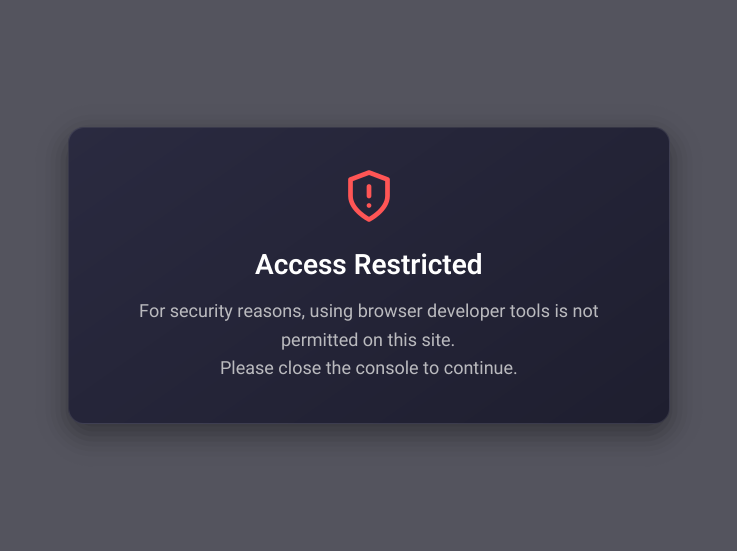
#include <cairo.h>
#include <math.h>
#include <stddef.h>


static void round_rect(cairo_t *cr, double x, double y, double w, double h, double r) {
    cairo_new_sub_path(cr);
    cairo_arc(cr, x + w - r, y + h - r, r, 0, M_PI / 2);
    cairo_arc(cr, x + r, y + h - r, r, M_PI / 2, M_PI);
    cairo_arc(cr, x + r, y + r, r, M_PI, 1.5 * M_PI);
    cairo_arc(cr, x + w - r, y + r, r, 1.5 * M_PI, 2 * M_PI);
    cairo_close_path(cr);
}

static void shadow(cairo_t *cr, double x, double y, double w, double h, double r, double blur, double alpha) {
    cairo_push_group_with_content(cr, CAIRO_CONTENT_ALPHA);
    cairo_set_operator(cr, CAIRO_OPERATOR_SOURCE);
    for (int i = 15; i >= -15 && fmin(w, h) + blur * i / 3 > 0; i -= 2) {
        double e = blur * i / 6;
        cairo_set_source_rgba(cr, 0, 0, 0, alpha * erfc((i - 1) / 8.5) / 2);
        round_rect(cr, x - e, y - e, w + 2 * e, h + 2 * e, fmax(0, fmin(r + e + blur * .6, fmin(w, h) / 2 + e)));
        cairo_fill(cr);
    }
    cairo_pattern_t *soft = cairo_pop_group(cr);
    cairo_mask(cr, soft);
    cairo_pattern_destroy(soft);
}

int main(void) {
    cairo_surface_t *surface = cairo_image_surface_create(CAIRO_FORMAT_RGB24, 737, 551);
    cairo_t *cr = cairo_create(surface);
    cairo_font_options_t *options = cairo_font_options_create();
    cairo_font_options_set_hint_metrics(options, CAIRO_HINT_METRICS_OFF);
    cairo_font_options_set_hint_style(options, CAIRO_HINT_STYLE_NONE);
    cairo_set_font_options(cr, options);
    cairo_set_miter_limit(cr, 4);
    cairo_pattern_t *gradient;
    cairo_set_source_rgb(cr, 0.329, 0.329, 0.369);
    cairo_paint(cr);
    cairo_set_source_rgb(cr, 0, 0, 0);
    shadow(cr, 68, 137, 602, 297, 16, 15, 0.4);
    cairo_save(cr);
    round_rect(cr, 68, 127, 602, 297, 16);
    cairo_clip(cr);
    gradient = cairo_pattern_create_linear(201, -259, 537, 220);
    cairo_pattern_add_color_stop_rgba(gradient, 0, 0.165, 0.165, 0.251, 1);
    cairo_pattern_add_color_stop_rgba(gradient, 1, 0.118, 0.118, 0.184, 1);
    cairo_set_source(cr, gradient);
    cairo_pattern_destroy(gradient);
    cairo_rectangle(cr, 78, 127, 582, 1);
    cairo_fill(cr);
    gradient = cairo_pattern_create_linear(-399, 36, -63, 515);
    cairo_pattern_add_color_stop_rgba(gradient, 0, 0.165, 0.165, 0.251, 1);
    cairo_pattern_add_color_stop_rgba(gradient, 1, 0.118, 0.118, 0.184, 1);
    cairo_set_source(cr, gradient);
    cairo_pattern_destroy(gradient);
    cairo_rectangle(cr, 68, 137, 1, 277);
    cairo_fill(cr);
    gradient = cairo_pattern_create_linear(201, 36, 537, 515);
    cairo_pattern_add_color_stop_rgba(gradient, 0, 0.165, 0.165, 0.251, 1);
    cairo_pattern_add_color_stop_rgba(gradient, 1, 0.118, 0.118, 0.184, 1);
    cairo_set_source(cr, gradient);
    cairo_pattern_destroy(gradient);
    cairo_rectangle(cr, 69, 128, 600, 295);
    cairo_fill(cr);
    gradient = cairo_pattern_create_linear(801, 36, 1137, 515);
    cairo_pattern_add_color_stop_rgba(gradient, 0, 0.165, 0.165, 0.251, 1);
    cairo_pattern_add_color_stop_rgba(gradient, 1, 0.118, 0.118, 0.184, 1);
    cairo_set_source(cr, gradient);
    cairo_pattern_destroy(gradient);
    cairo_rectangle(cr, 669, 137, 1, 277);
    cairo_fill(cr);
    gradient = cairo_pattern_create_linear(201, 331, 537, 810);
    cairo_pattern_add_color_stop_rgba(gradient, 0, 0.165, 0.165, 0.251, 1);
    cairo_pattern_add_color_stop_rgba(gradient, 1, 0.118, 0.118, 0.184, 1);
    cairo_set_source(cr, gradient);
    cairo_pattern_destroy(gradient);
    cairo_rectangle(cr, 78, 423, 582, 1);
    cairo_fill(cr);
    cairo_restore(cr);
    round_rect(cr, 68.5, 127.5, 601, 296, 15.5);
    cairo_set_source_rgba(cr, 1, 1, 1, 0.1);
    cairo_set_line_width(cr, 1);
    cairo_stroke(cr);
    cairo_new_path(cr);
    cairo_move_to(cr, 369, 219.5);
    cairo_curve_to(cr, 369, 219.5, 387.5, 210, 387.5, 196);
    cairo_line_to(cr, 387.5, 179.5);
    cairo_line_to(cr, 369, 172.5);
    cairo_line_to(cr, 350.5, 179.5);
    cairo_line_to(cr, 350.5, 196);
    cairo_curve_to(cr, 350.5, 210, 369, 219.5, 369, 219.5);
    cairo_close_path(cr);
    cairo_move_to(cr, 369, 186.5);
    cairo_line_to(cr, 369, 196);
    cairo_move_to(cr, 369, 205.5);
    cairo_line_to(cr, 369, 205.5);
    cairo_set_source_rgb(cr, 1, 0.333, 0.333);
    cairo_set_line_width(cr, 4.7);
    cairo_set_line_cap(cr, CAIRO_LINE_CAP_ROUND);
    cairo_set_line_join(cr, CAIRO_LINE_JOIN_ROUND);
    cairo_stroke(cr);
    cairo_select_font_face(cr, "Roboto SemiBold", CAIRO_FONT_SLANT_NORMAL, CAIRO_FONT_WEIGHT_NORMAL);
    cairo_set_font_size(cr, 28);
    cairo_set_source_rgb(cr, 1, 1, 1);
    cairo_move_to(cr, 255, 274);
    cairo_show_text(cr, "Access Restricted");
    cairo_select_font_face(cr, "Roboto", CAIRO_FONT_SLANT_NORMAL, CAIRO_FONT_WEIGHT_NORMAL);
    cairo_set_font_size(cr, 18);
    cairo_set_source_rgb(cr, 0.729, 0.729, 0.745);
    cairo_move_to(cr, 139, 317);
    cairo_show_text(cr, "For security reasons, using browser developer tools is not");
    cairo_move_to(cr, 281, 346);
    cairo_show_text(cr, "permitted on this site.");
    cairo_move_to(cr, 220, 374);
    cairo_show_text(cr, "Please close the console to continue.");
    cairo_surface_write_to_png(surface, "page.png");
    cairo_font_options_destroy(options);
    cairo_destroy(cr);
    cairo_surface_destroy(surface);
    return 0;
}
